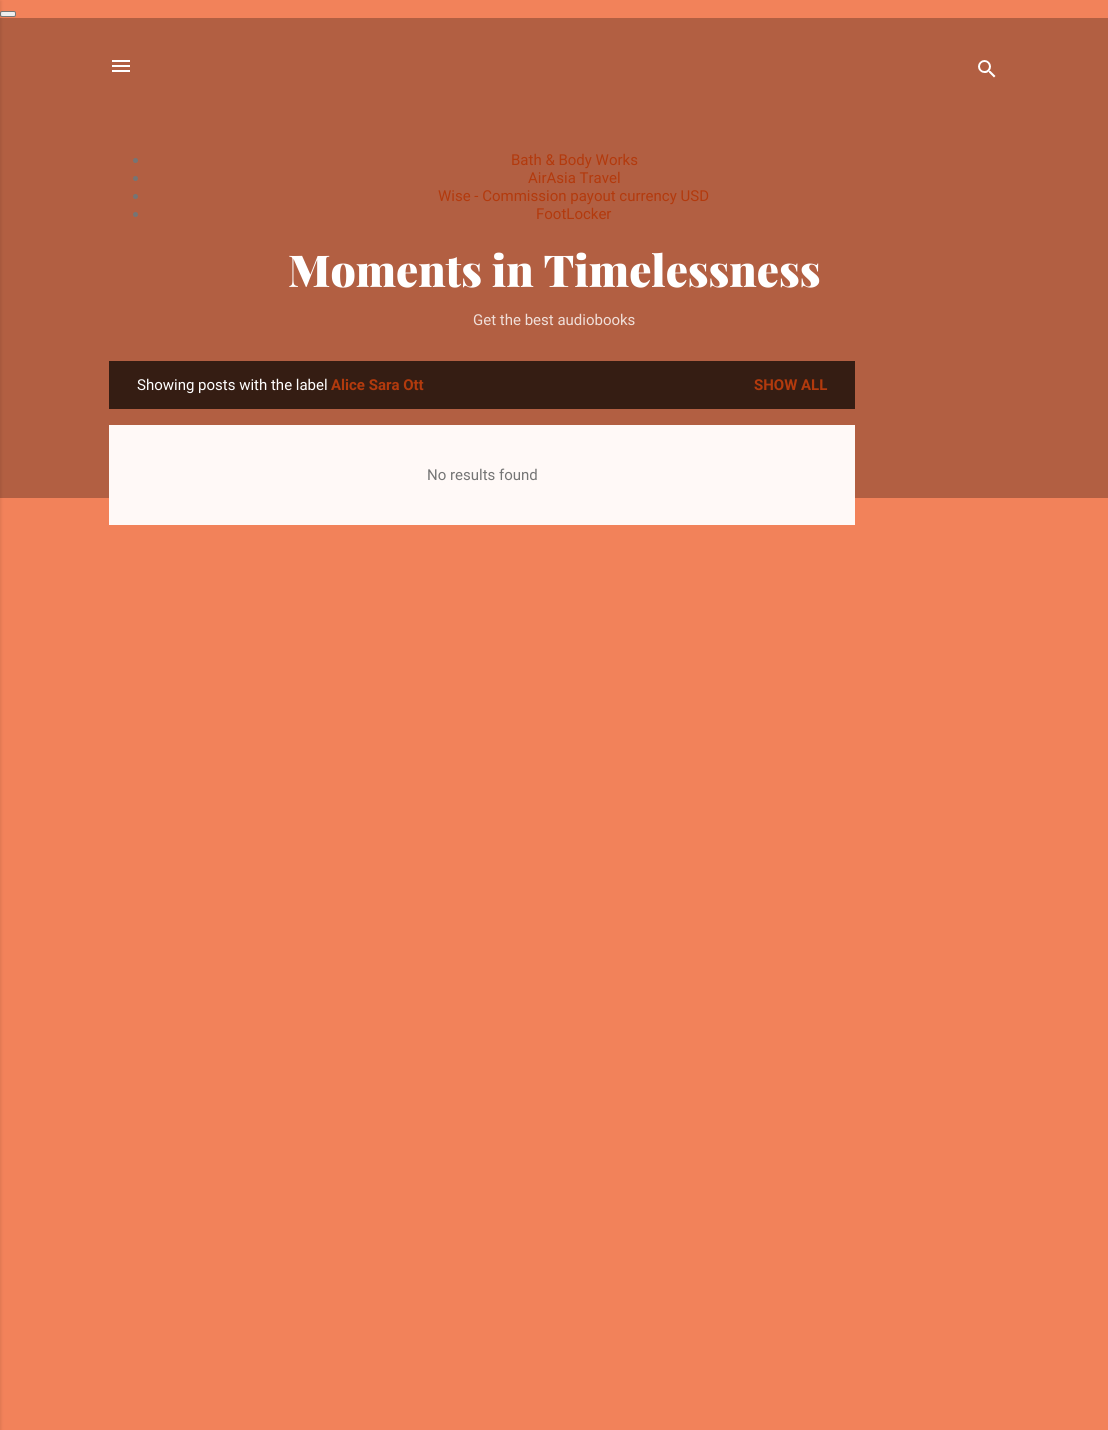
#include <cairo.h>
#include <math.h>
#include <stddef.h>


static void round_rect(cairo_t *cr, double x, double y, double w, double h, double r) {
    cairo_new_sub_path(cr);
    cairo_arc(cr, x + w - r, y + h - r, r, 0, M_PI / 2);
    cairo_arc(cr, x + r, y + h - r, r, M_PI / 2, M_PI);
    cairo_arc(cr, x + r, y + r, r, M_PI, 1.5 * M_PI);
    cairo_arc(cr, x + w - r, y + r, r, 1.5 * M_PI, 2 * M_PI);
    cairo_close_path(cr);
}

static void shadow(cairo_t *cr, double x, double y, double w, double h, double r, double blur, double alpha) {
    cairo_push_group_with_content(cr, CAIRO_CONTENT_ALPHA);
    cairo_set_operator(cr, CAIRO_OPERATOR_SOURCE);
    for (int i = 15; i >= -15 && fmin(w, h) + blur * i / 3 > 0; i -= 2) {
        double e = blur * i / 6;
        cairo_set_source_rgba(cr, 0, 0, 0, alpha * erfc((i - 1) / 8.5) / 2);
        round_rect(cr, x - e, y - e, w + 2 * e, h + 2 * e, fmax(0, fmin(r + e + blur * .6, fmin(w, h) / 2 + e)));
        cairo_fill(cr);
    }
    cairo_pattern_t *soft = cairo_pop_group(cr);
    cairo_mask(cr, soft);
    cairo_pattern_destroy(soft);
}

static void picture(cairo_t *cr, const char *path, double x, double y, double w, double h) {
    cairo_surface_t *image = cairo_image_surface_create_from_png(path);
    cairo_save(cr);
    cairo_set_source_surface(cr, image, x, y);
    cairo_rectangle(cr, x, y, w, h);
    cairo_fill(cr);
    cairo_restore(cr);
    cairo_surface_destroy(image);
}

int main(void) {
    cairo_surface_t *surface = cairo_image_surface_create(CAIRO_FORMAT_RGB24, 1108, 1430);
    cairo_t *cr = cairo_create(surface);
    cairo_font_options_t *options = cairo_font_options_create();
    cairo_font_options_set_hint_metrics(options, CAIRO_HINT_METRICS_OFF);
    cairo_font_options_set_hint_style(options, CAIRO_HINT_STYLE_NONE);
    cairo_set_font_options(cr, options);
    cairo_set_miter_limit(cr, 4);
    cairo_set_source_rgb(cr, 0.949, 0.51, 0.353);
    cairo_paint(cr);
    cairo_set_source_rgb(cr, 0.937, 0.937, 0.937);
    round_rect(cr, 0.5, 11.5, 15, 5, 1.5);
    cairo_fill_preserve(cr);
    cairo_set_source_rgb(cr, 0.463, 0.463, 0.463);
    cairo_set_line_width(cr, 1);
    cairo_stroke(cr);
    cairo_set_source_rgb(cr, 0.698, 0.373, 0.259);
    cairo_rectangle(cr, 0, 18, 1108, 480);
    cairo_fill(cr);
    cairo_set_source_rgb(cr, 0, 0, 0);
    shadow(cr, -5, 1, 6, 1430, 0, 1.5, 0.1);
    picture(cr, "img1.png", 112, 60, 18, 12);
    picture(cr, "img2.png", 978, 60, 18, 18);
    cairo_set_source_rgb(cr, 0.459, 0.459, 0.459);
    cairo_arc(cr, 135.5, 160.5, 2.5, 0, 2 * M_PI);
    cairo_fill(cr);
    cairo_select_font_face(cr, "Roboto", CAIRO_FONT_SLANT_NORMAL, CAIRO_FONT_WEIGHT_NORMAL);
    cairo_set_font_size(cr, 15);
    cairo_set_source_rgb(cr, 0.702, 0.227, 0.051);
    cairo_move_to(cr, 511, 165);
    cairo_show_text(cr, "Bath & Body Works");
    cairo_set_source_rgb(cr, 0.459, 0.459, 0.459);
    cairo_new_path(cr);
    cairo_arc(cr, 135.5, 178.5, 2.5, 0, 2 * M_PI);
    cairo_fill(cr);
    cairo_set_source_rgb(cr, 0.702, 0.227, 0.051);
    cairo_move_to(cr, 528, 183);
    cairo_show_text(cr, "AirAsia Travel");
    cairo_set_source_rgb(cr, 0.459, 0.459, 0.459);
    cairo_new_path(cr);
    cairo_arc(cr, 135.5, 196.5, 2.5, 0, 2 * M_PI);
    cairo_fill(cr);
    cairo_set_source_rgb(cr, 0.702, 0.227, 0.051);
    cairo_move_to(cr, 438, 201);
    cairo_show_text(cr, "Wise - Commission payout currency USD");
    cairo_set_source_rgb(cr, 0.459, 0.459, 0.459);
    cairo_new_path(cr);
    cairo_arc(cr, 135.5, 214.5, 2.5, 0, 2 * M_PI);
    cairo_fill(cr);
    cairo_set_source_rgb(cr, 0.702, 0.227, 0.051);
    cairo_move_to(cr, 536, 219);
    cairo_show_text(cr, "FootLocker");
    cairo_select_font_face(cr, "Playfair Display Black", CAIRO_FONT_SLANT_NORMAL, CAIRO_FONT_WEIGHT_NORMAL);
    cairo_set_font_size(cr, 44);
    cairo_set_source_rgb(cr, 1, 1, 1);
    cairo_move_to(cr, 288, 287);
    cairo_show_text(cr, "Moments in Timelessness");
    cairo_select_font_face(cr, "Roboto", CAIRO_FONT_SLANT_NORMAL, CAIRO_FONT_WEIGHT_NORMAL);
    cairo_set_font_size(cr, 15);
    cairo_set_source_rgb(cr, 0.941, 0.875, 0.851);
    cairo_move_to(cr, 473, 325);
    cairo_show_text(cr, "Get the best audiobooks");
    cairo_set_source_rgb(cr, 0.208, 0.114, 0.078);
    cairo_rectangle(cr, 109, 361, 746, 48);
    cairo_fill(cr);
    cairo_set_source_rgb(cr, 1, 1, 1);
    cairo_move_to(cr, 137, 390);
    cairo_show_text(cr, "Showing posts with the label");
    cairo_select_font_face(cr, "Roboto", CAIRO_FONT_SLANT_NORMAL, CAIRO_FONT_WEIGHT_BOLD);
    cairo_set_source_rgb(cr, 0.702, 0.227, 0.051);
    cairo_move_to(cr, 331, 390);
    cairo_show_text(cr, "Alice Sara Ott");
    cairo_move_to(cr, 754, 390);
    cairo_show_text(cr, "SHOW ALL");
    cairo_set_source_rgb(cr, 1, 0.973, 0.965);
    cairo_rectangle(cr, 109, 425, 746, 100);
    cairo_fill(cr);
    cairo_select_font_face(cr, "Roboto", CAIRO_FONT_SLANT_NORMAL, CAIRO_FONT_WEIGHT_NORMAL);
    cairo_set_source_rgb(cr, 0.459, 0.459, 0.459);
    cairo_move_to(cr, 427, 480);
    cairo_show_text(cr, "No results found");
    cairo_surface_write_to_png(surface, "page.png");
    cairo_font_options_destroy(options);
    cairo_destroy(cr);
    cairo_surface_destroy(surface);
    return 0;
}
